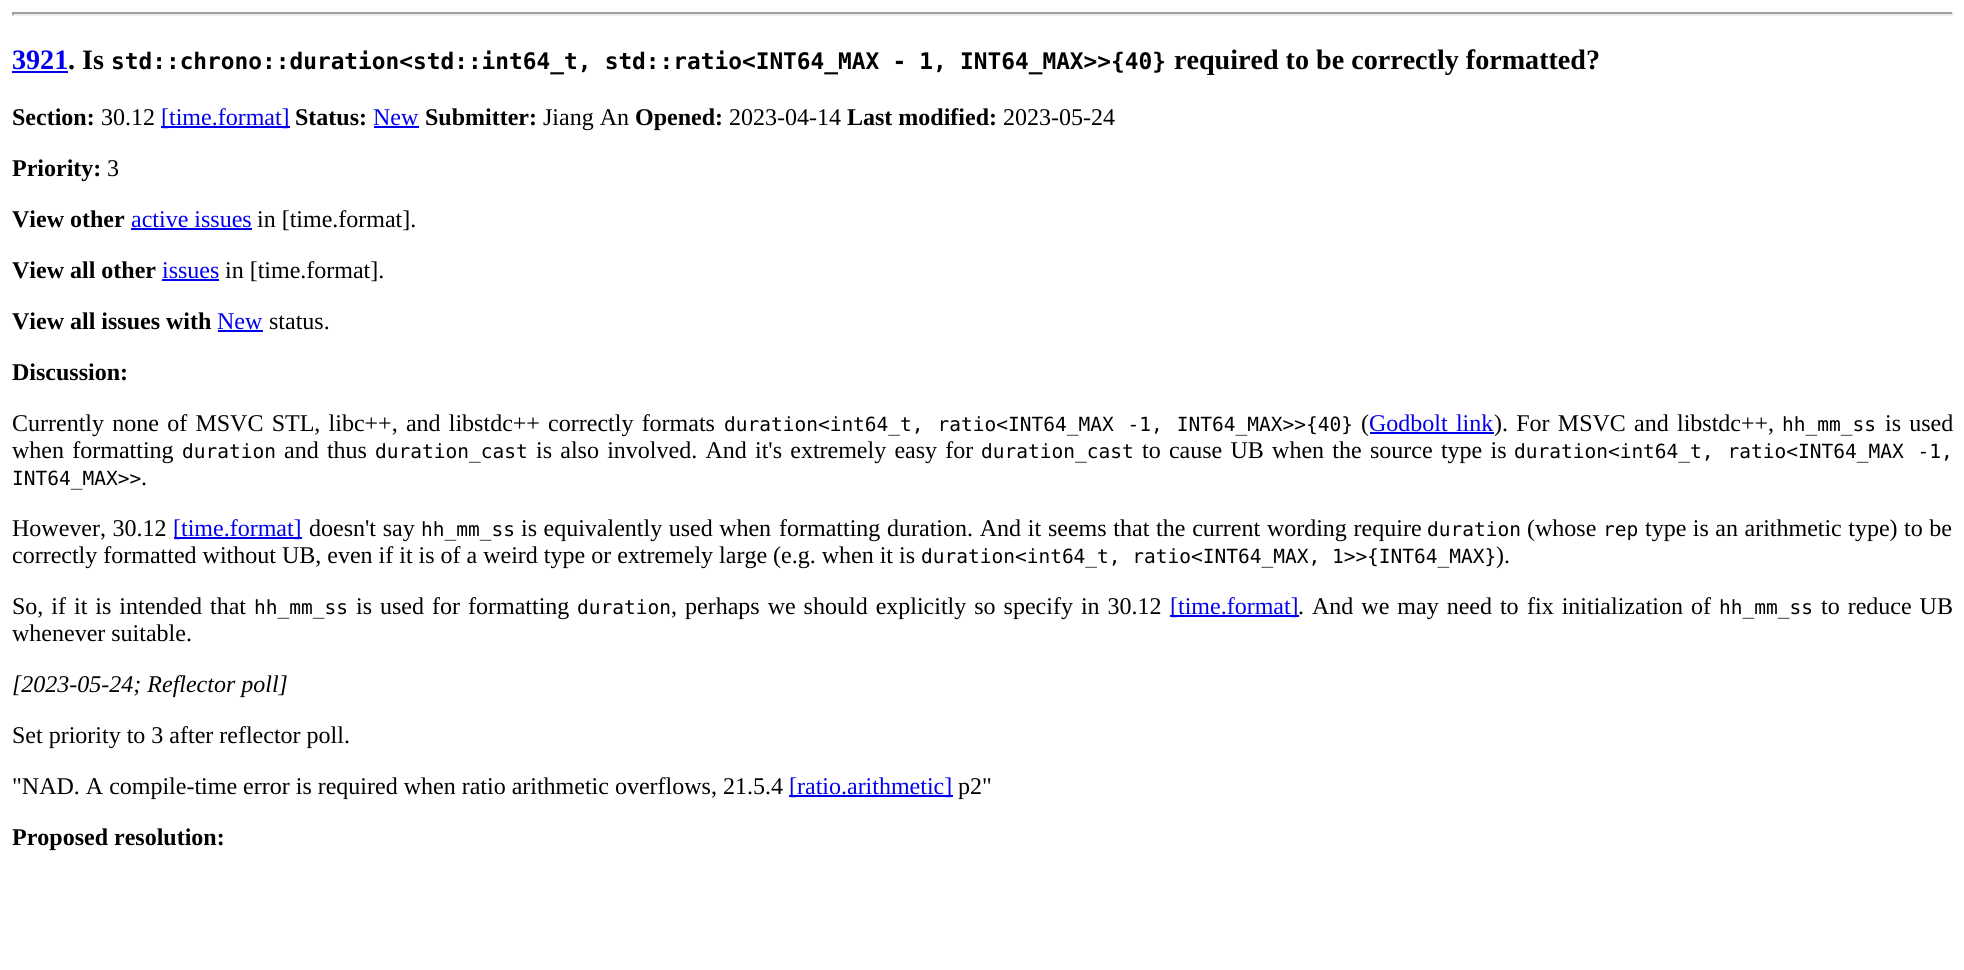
#include <cairo.h>
#include <math.h>
#include <stddef.h>


static void spaced_text(cairo_t *cr, double x, double y, const char *s, double letter, double word) {
    cairo_move_to(cr, x, y);
    while (*s) {
        char ch[5] = {0};
        int n = 0;
        do ch[n++] = *s++; while ((*s & 0xC0) == 0x80);
        cairo_show_text(cr, ch);
        cairo_rel_move_to(cr, letter + word * (*ch == ' '), 0);
    }
}

int main(void) {
    cairo_surface_t *surface = cairo_image_surface_create(CAIRO_FORMAT_RGB24, 1964, 970);
    cairo_t *cr = cairo_create(surface);
    cairo_font_options_t *options = cairo_font_options_create();
    cairo_font_options_set_hint_metrics(options, CAIRO_HINT_METRICS_OFF);
    cairo_font_options_set_hint_style(options, CAIRO_HINT_STYLE_NONE);
    cairo_set_font_options(cr, options);
    cairo_set_miter_limit(cr, 4);
    cairo_set_source_rgb(cr, 1, 1, 1);
    cairo_paint(cr);
    cairo_set_source_rgb(cr, 0.624, 0.624, 0.624);
    cairo_rectangle(cr, 12, 12, 1941, 2);
    cairo_fill(cr);
    cairo_set_source_rgb(cr, 0.933, 0.933, 0.933);
    cairo_rectangle(cr, 1952, 12, 2, 3);
    cairo_fill(cr);
    cairo_rectangle(cr, 12, 14, 1941, 2);
    cairo_fill(cr);
    cairo_set_source_rgb(cr, 0.624, 0.624, 0.624);
    cairo_rectangle(cr, 12, 12, 2, 3);
    cairo_fill(cr);
    cairo_select_font_face(cr, "Liberation Serif", CAIRO_FONT_SLANT_NORMAL, CAIRO_FONT_WEIGHT_BOLD);
    cairo_set_font_size(cr, 28.1);
    cairo_set_source_rgb(cr, 0, 0, 0.933);
    cairo_move_to(cr, 12, 69);
    cairo_show_text(cr, "3921");
    cairo_rectangle(cr, 12, 71, 56, 2);
    cairo_fill(cr);
    cairo_set_source_rgb(cr, 0, 0, 0);
    cairo_move_to(cr, 68, 69);
    cairo_show_text(cr, ". Is");
    cairo_select_font_face(cr, "DejaVu Sans Mono", CAIRO_FONT_SLANT_NORMAL, CAIRO_FONT_WEIGHT_BOLD);
    cairo_set_font_size(cr, 22.8);
    spaced_text(cr, 111, 69, "std::chrono::duration<std::int64_t, std::ratio<INT64_MAX - 1, INT64_MAX>>{40}", 0, -0.5);
    cairo_select_font_face(cr, "Liberation Serif", CAIRO_FONT_SLANT_NORMAL, CAIRO_FONT_WEIGHT_BOLD);
    cairo_set_font_size(cr, 28.1);
    cairo_move_to(cr, 1174, 69);
    cairo_show_text(cr, "required to be correctly formatted?");
    cairo_set_font_size(cr, 24);
    cairo_move_to(cr, 12, 125);
    cairo_show_text(cr, "Section:");
    cairo_select_font_face(cr, "Liberation Serif", CAIRO_FONT_SLANT_NORMAL, CAIRO_FONT_WEIGHT_NORMAL);
    cairo_move_to(cr, 101, 125);
    cairo_show_text(cr, "30.12");
    cairo_set_source_rgb(cr, 0, 0, 0.933);
    cairo_rectangle(cr, 161, 126, 129, 2);
    cairo_fill(cr);
    cairo_move_to(cr, 161, 125);
    cairo_show_text(cr, "[time.format]");
    cairo_select_font_face(cr, "Liberation Serif", CAIRO_FONT_SLANT_NORMAL, CAIRO_FONT_WEIGHT_BOLD);
    cairo_set_source_rgb(cr, 0, 0, 0);
    cairo_move_to(cr, 295, 125);
    cairo_show_text(cr, "Status:");
    cairo_select_font_face(cr, "Liberation Serif", CAIRO_FONT_SLANT_NORMAL, CAIRO_FONT_WEIGHT_NORMAL);
    cairo_set_source_rgb(cr, 0, 0, 0.933);
    cairo_move_to(cr, 373, 125);
    cairo_show_text(cr, "New");
    cairo_rectangle(cr, 374, 126, 45, 2);
    cairo_fill(cr);
    cairo_select_font_face(cr, "Liberation Serif", CAIRO_FONT_SLANT_NORMAL, CAIRO_FONT_WEIGHT_BOLD);
    cairo_set_source_rgb(cr, 0, 0, 0);
    cairo_move_to(cr, 425, 125);
    cairo_show_text(cr, "Submitter:");
    cairo_select_font_face(cr, "Liberation Serif", CAIRO_FONT_SLANT_NORMAL, CAIRO_FONT_WEIGHT_NORMAL);
    cairo_move_to(cr, 543, 125);
    cairo_show_text(cr, "Jiang An");
    cairo_select_font_face(cr, "Liberation Serif", CAIRO_FONT_SLANT_NORMAL, CAIRO_FONT_WEIGHT_BOLD);
    cairo_move_to(cr, 635, 125);
    cairo_show_text(cr, "Opened:");
    cairo_select_font_face(cr, "Liberation Serif", CAIRO_FONT_SLANT_NORMAL, CAIRO_FONT_WEIGHT_NORMAL);
    cairo_move_to(cr, 729, 125);
    cairo_show_text(cr, "2023-04-14");
    cairo_select_font_face(cr, "Liberation Serif", CAIRO_FONT_SLANT_NORMAL, CAIRO_FONT_WEIGHT_BOLD);
    cairo_move_to(cr, 847, 125);
    cairo_show_text(cr, "Last modified:");
    cairo_select_font_face(cr, "Liberation Serif", CAIRO_FONT_SLANT_NORMAL, CAIRO_FONT_WEIGHT_NORMAL);
    cairo_move_to(cr, 1003, 125);
    cairo_show_text(cr, "2023-05-24");
    cairo_select_font_face(cr, "Liberation Serif", CAIRO_FONT_SLANT_NORMAL, CAIRO_FONT_WEIGHT_BOLD);
    cairo_move_to(cr, 12, 176);
    cairo_show_text(cr, "Priority:");
    cairo_select_font_face(cr, "Liberation Serif", CAIRO_FONT_SLANT_NORMAL, CAIRO_FONT_WEIGHT_NORMAL);
    cairo_move_to(cr, 107, 176);
    cairo_show_text(cr, "3");
    cairo_select_font_face(cr, "Liberation Serif", CAIRO_FONT_SLANT_NORMAL, CAIRO_FONT_WEIGHT_BOLD);
    cairo_move_to(cr, 12, 227);
    cairo_show_text(cr, "View other");
    cairo_select_font_face(cr, "Liberation Serif", CAIRO_FONT_SLANT_NORMAL, CAIRO_FONT_WEIGHT_NORMAL);
    cairo_set_source_rgb(cr, 0, 0, 0.933);
    cairo_move_to(cr, 131, 227);
    cairo_show_text(cr, "active issues");
    cairo_rectangle(cr, 131, 228, 121, 2);
    cairo_fill(cr);
    cairo_set_source_rgb(cr, 0, 0, 0);
    cairo_move_to(cr, 257, 227);
    cairo_show_text(cr, "in [time.format].");
    cairo_select_font_face(cr, "Liberation Serif", CAIRO_FONT_SLANT_NORMAL, CAIRO_FONT_WEIGHT_BOLD);
    cairo_move_to(cr, 12, 278);
    cairo_show_text(cr, "View all other");
    cairo_select_font_face(cr, "Liberation Serif", CAIRO_FONT_SLANT_NORMAL, CAIRO_FONT_WEIGHT_NORMAL);
    cairo_set_source_rgb(cr, 0, 0, 0.933);
    cairo_move_to(cr, 162, 278);
    cairo_show_text(cr, "issues");
    cairo_rectangle(cr, 162, 279, 57, 2);
    cairo_fill(cr);
    cairo_set_source_rgb(cr, 0, 0, 0);
    cairo_move_to(cr, 225, 278);
    cairo_show_text(cr, "in [time.format].");
    cairo_select_font_face(cr, "Liberation Serif", CAIRO_FONT_SLANT_NORMAL, CAIRO_FONT_WEIGHT_BOLD);
    cairo_move_to(cr, 12, 329);
    cairo_show_text(cr, "View all issues with");
    cairo_select_font_face(cr, "Liberation Serif", CAIRO_FONT_SLANT_NORMAL, CAIRO_FONT_WEIGHT_NORMAL);
    cairo_set_source_rgb(cr, 0, 0, 0.933);
    cairo_move_to(cr, 217, 329);
    cairo_show_text(cr, "New");
    cairo_rectangle(cr, 218, 330, 45, 2);
    cairo_fill(cr);
    cairo_set_source_rgb(cr, 0, 0, 0);
    cairo_move_to(cr, 269, 329);
    cairo_show_text(cr, "status.");
    cairo_select_font_face(cr, "Liberation Serif", CAIRO_FONT_SLANT_NORMAL, CAIRO_FONT_WEIGHT_BOLD);
    cairo_move_to(cr, 12, 380);
    cairo_show_text(cr, "Discussion:");
    cairo_select_font_face(cr, "Liberation Serif", CAIRO_FONT_SLANT_NORMAL, CAIRO_FONT_WEIGHT_NORMAL);
    spaced_text(cr, 12, 431, "Currently none of MSVC STL, libc++, and libstdc++ correctly formats", 0, 2.25);
    cairo_select_font_face(cr, "DejaVu Sans Mono", CAIRO_FONT_SLANT_NORMAL, CAIRO_FONT_WEIGHT_NORMAL);
    cairo_set_font_size(cr, 19.5);
    spaced_text(cr, 724, 431, "duration<int64_t, ratio<INT64_MAX -1, INT64_MAX>>{40}", 0, 2.25);
    cairo_select_font_face(cr, "Liberation Serif", CAIRO_FONT_SLANT_NORMAL, CAIRO_FONT_WEIGHT_NORMAL);
    cairo_set_font_size(cr, 24);
    cairo_move_to(cr, 1361, 431);
    cairo_show_text(cr, "(");
    cairo_set_source_rgb(cr, 0, 0, 0.933);
    spaced_text(cr, 1369, 431, "Godbolt link", 0, 2.25);
    cairo_rectangle(cr, 1370, 432, 124, 2);
    cairo_fill(cr);
    cairo_set_source_rgb(cr, 0, 0, 0);
    spaced_text(cr, 1494, 431, "). For MSVC and libstdc++,", 0, 2.25);
    cairo_select_font_face(cr, "DejaVu Sans Mono", CAIRO_FONT_SLANT_NORMAL, CAIRO_FONT_WEIGHT_NORMAL);
    cairo_set_font_size(cr, 19.5);
    cairo_move_to(cr, 1782, 431);
    cairo_show_text(cr, "hh_mm_ss");
    cairo_select_font_face(cr, "Liberation Serif", CAIRO_FONT_SLANT_NORMAL, CAIRO_FONT_WEIGHT_NORMAL);
    cairo_set_font_size(cr, 24);
    spaced_text(cr, 1885, 431, "is used", 0, 2.25);
    spaced_text(cr, 12, 458, "when formatting", 0, 2.25);
    cairo_select_font_face(cr, "DejaVu Sans Mono", CAIRO_FONT_SLANT_NORMAL, CAIRO_FONT_WEIGHT_NORMAL);
    cairo_set_font_size(cr, 19.5);
    cairo_move_to(cr, 182, 458);
    cairo_show_text(cr, "duration");
    cairo_select_font_face(cr, "Liberation Serif", CAIRO_FONT_SLANT_NORMAL, CAIRO_FONT_WEIGHT_NORMAL);
    cairo_set_font_size(cr, 24);
    spaced_text(cr, 284, 458, "and thus", 0, 2.25);
    cairo_select_font_face(cr, "DejaVu Sans Mono", CAIRO_FONT_SLANT_NORMAL, CAIRO_FONT_WEIGHT_NORMAL);
    cairo_set_font_size(cr, 19.5);
    cairo_move_to(cr, 375, 458);
    cairo_show_text(cr, "duration_cast");
    cairo_select_font_face(cr, "Liberation Serif", CAIRO_FONT_SLANT_NORMAL, CAIRO_FONT_WEIGHT_NORMAL);
    cairo_set_font_size(cr, 24);
    spaced_text(cr, 536, 458, "is also involved. And it's extremely easy for", 0, 2.25);
    cairo_select_font_face(cr, "DejaVu Sans Mono", CAIRO_FONT_SLANT_NORMAL, CAIRO_FONT_WEIGHT_NORMAL);
    cairo_set_font_size(cr, 19.5);
    cairo_move_to(cr, 981, 458);
    cairo_show_text(cr, "duration_cast");
    cairo_select_font_face(cr, "Liberation Serif", CAIRO_FONT_SLANT_NORMAL, CAIRO_FONT_WEIGHT_NORMAL);
    cairo_set_font_size(cr, 24);
    spaced_text(cr, 1142, 458, "to cause UB when the", 0, 2.25);
    spaced_text(cr, 1370, 458, "source type is", 0, 2.25);
    cairo_select_font_face(cr, "DejaVu Sans Mono", CAIRO_FONT_SLANT_NORMAL, CAIRO_FONT_WEIGHT_NORMAL);
    cairo_set_font_size(cr, 19.5);
    spaced_text(cr, 1514, 458, "duration<int64_t, ratio<INT64_MAX -1,", 0, 2.25);
    cairo_move_to(cr, 12, 485);
    cairo_show_text(cr, "INT64_MAX>>");
    cairo_select_font_face(cr, "Liberation Serif", CAIRO_FONT_SLANT_NORMAL, CAIRO_FONT_WEIGHT_NORMAL);
    cairo_set_font_size(cr, 24);
    cairo_move_to(cr, 141, 485);
    cairo_show_text(cr, ".");
    spaced_text(cr, 12, 536, "However, 30.12", 0, 0.5);
    cairo_set_source_rgb(cr, 0, 0, 0.933);
    cairo_rectangle(cr, 174, 537, 128, 2);
    cairo_fill(cr);
    cairo_move_to(cr, 173, 536);
    cairo_show_text(cr, "[time.format]");
    cairo_set_source_rgb(cr, 0, 0, 0);
    spaced_text(cr, 309, 536, "doesn't say", 0, 0.75);
    cairo_select_font_face(cr, "DejaVu Sans Mono", CAIRO_FONT_SLANT_NORMAL, CAIRO_FONT_WEIGHT_NORMAL);
    cairo_set_font_size(cr, 19.5);
    cairo_move_to(cr, 421, 536);
    cairo_show_text(cr, "hh_mm_ss");
    cairo_select_font_face(cr, "Liberation Serif", CAIRO_FONT_SLANT_NORMAL, CAIRO_FONT_WEIGHT_NORMAL);
    cairo_set_font_size(cr, 24);
    spaced_text(cr, 521, 536, "is equivalently used when", 0, 0.5);
    spaced_text(cr, 779, 536, "formatting duration. And it seems that the current wording require", 0, 0.75);
    cairo_select_font_face(cr, "DejaVu Sans Mono", CAIRO_FONT_SLANT_NORMAL, CAIRO_FONT_WEIGHT_NORMAL);
    cairo_set_font_size(cr, 19.5);
    cairo_move_to(cr, 1427, 536);
    cairo_show_text(cr, "duration");
    cairo_select_font_face(cr, "Liberation Serif", CAIRO_FONT_SLANT_NORMAL, CAIRO_FONT_WEIGHT_NORMAL);
    cairo_set_font_size(cr, 24);
    cairo_move_to(cr, 1527, 536);
    cairo_show_text(cr, "(whose");
    cairo_select_font_face(cr, "DejaVu Sans Mono", CAIRO_FONT_SLANT_NORMAL, CAIRO_FONT_WEIGHT_NORMAL);
    cairo_set_font_size(cr, 19.5);
    cairo_move_to(cr, 1603, 536);
    cairo_show_text(cr, "rep");
    cairo_select_font_face(cr, "Liberation Serif", CAIRO_FONT_SLANT_NORMAL, CAIRO_FONT_WEIGHT_NORMAL);
    cairo_set_font_size(cr, 24);
    spaced_text(cr, 1645, 536, "type is an arithmetic type) to be", 0, 0.5);
    cairo_move_to(cr, 12, 563);
    cairo_show_text(cr, "correctly formatted without UB, even if it is of a weird type or extremely large (e.g. when it is");
    cairo_select_font_face(cr, "DejaVu Sans Mono", CAIRO_FONT_SLANT_NORMAL, CAIRO_FONT_WEIGHT_NORMAL);
    cairo_set_font_size(cr, 19.5);
    cairo_move_to(cr, 921, 563);
    cairo_show_text(cr, "duration<int64_t, ratio<INT64_MAX, 1>>{INT64_MAX}");
    cairo_select_font_face(cr, "Liberation Serif", CAIRO_FONT_SLANT_NORMAL, CAIRO_FONT_WEIGHT_NORMAL);
    cairo_set_font_size(cr, 24);
    cairo_move_to(cr, 1496, 563);
    cairo_show_text(cr, ").");
    spaced_text(cr, 12, 614, "So, if it is intended that", 0, 2);
    cairo_select_font_face(cr, "DejaVu Sans Mono", CAIRO_FONT_SLANT_NORMAL, CAIRO_FONT_WEIGHT_NORMAL);
    cairo_set_font_size(cr, 19.5);
    cairo_move_to(cr, 254, 614);
    cairo_show_text(cr, "hh_mm_ss");
    cairo_select_font_face(cr, "Liberation Serif", CAIRO_FONT_SLANT_NORMAL, CAIRO_FONT_WEIGHT_NORMAL);
    cairo_set_font_size(cr, 24);
    spaced_text(cr, 356, 614, "is used for formatting", 0, 2);
    cairo_select_font_face(cr, "DejaVu Sans Mono", CAIRO_FONT_SLANT_NORMAL, CAIRO_FONT_WEIGHT_NORMAL);
    cairo_set_font_size(cr, 19.5);
    cairo_move_to(cr, 577, 614);
    cairo_show_text(cr, "duration");
    cairo_select_font_face(cr, "Liberation Serif", CAIRO_FONT_SLANT_NORMAL, CAIRO_FONT_WEIGHT_NORMAL);
    cairo_set_font_size(cr, 24);
    cairo_move_to(cr, 671, 614);
    cairo_show_text(cr, ",");
    spaced_text(cr, 685, 614, "perhaps we should explicitly so specify in 30.12", 0, 2);
    cairo_set_source_rgb(cr, 0, 0, 0.933);
    cairo_rectangle(cr, 1170, 615, 129, 2);
    cairo_fill(cr);
    cairo_move_to(cr, 1170, 614);
    cairo_show_text(cr, "[time.format]");
    cairo_set_source_rgb(cr, 0, 0, 0);
    spaced_text(cr, 1298, 614, ". And we may need to", 0, 2);
    spaced_text(cr, 1527, 614, "fix initialization of", 0, 2);
    cairo_select_font_face(cr, "DejaVu Sans Mono", CAIRO_FONT_SLANT_NORMAL, CAIRO_FONT_WEIGHT_NORMAL);
    cairo_set_font_size(cr, 19.5);
    cairo_move_to(cr, 1719, 614);
    cairo_show_text(cr, "hh_mm_ss");
    cairo_select_font_face(cr, "Liberation Serif", CAIRO_FONT_SLANT_NORMAL, CAIRO_FONT_WEIGHT_NORMAL);
    cairo_set_font_size(cr, 24);
    spaced_text(cr, 1821, 614, "to reduce UB", 0, 2);
    cairo_move_to(cr, 12, 641);
    cairo_show_text(cr, "whenever suitable.");
    cairo_select_font_face(cr, "Liberation Serif", CAIRO_FONT_SLANT_ITALIC, CAIRO_FONT_WEIGHT_NORMAL);
    cairo_move_to(cr, 12, 692);
    cairo_show_text(cr, "[2023-05-24; Reflector poll]");
    cairo_select_font_face(cr, "Liberation Serif", CAIRO_FONT_SLANT_NORMAL, CAIRO_FONT_WEIGHT_NORMAL);
    cairo_move_to(cr, 12, 743);
    cairo_show_text(cr, "Set priority to 3 after reflector poll.");
    cairo_move_to(cr, 12, 794);
    cairo_show_text(cr, "\"NAD. A compile-time error is required when ratio arithmetic overflows, 21.5.4");
    cairo_set_source_rgb(cr, 0, 0, 0.933);
    cairo_rectangle(cr, 789, 795, 164, 2);
    cairo_fill(cr);
    cairo_move_to(cr, 789, 794);
    cairo_show_text(cr, "[ratio.arithmetic]");
    cairo_set_source_rgb(cr, 0, 0, 0);
    cairo_move_to(cr, 958, 794);
    cairo_show_text(cr, "p2\"");
    cairo_select_font_face(cr, "Liberation Serif", CAIRO_FONT_SLANT_NORMAL, CAIRO_FONT_WEIGHT_BOLD);
    cairo_move_to(cr, 12, 845);
    cairo_show_text(cr, "Proposed resolution:");
    cairo_surface_write_to_png(surface, "page.png");
    cairo_font_options_destroy(options);
    cairo_destroy(cr);
    cairo_surface_destroy(surface);
    return 0;
}
